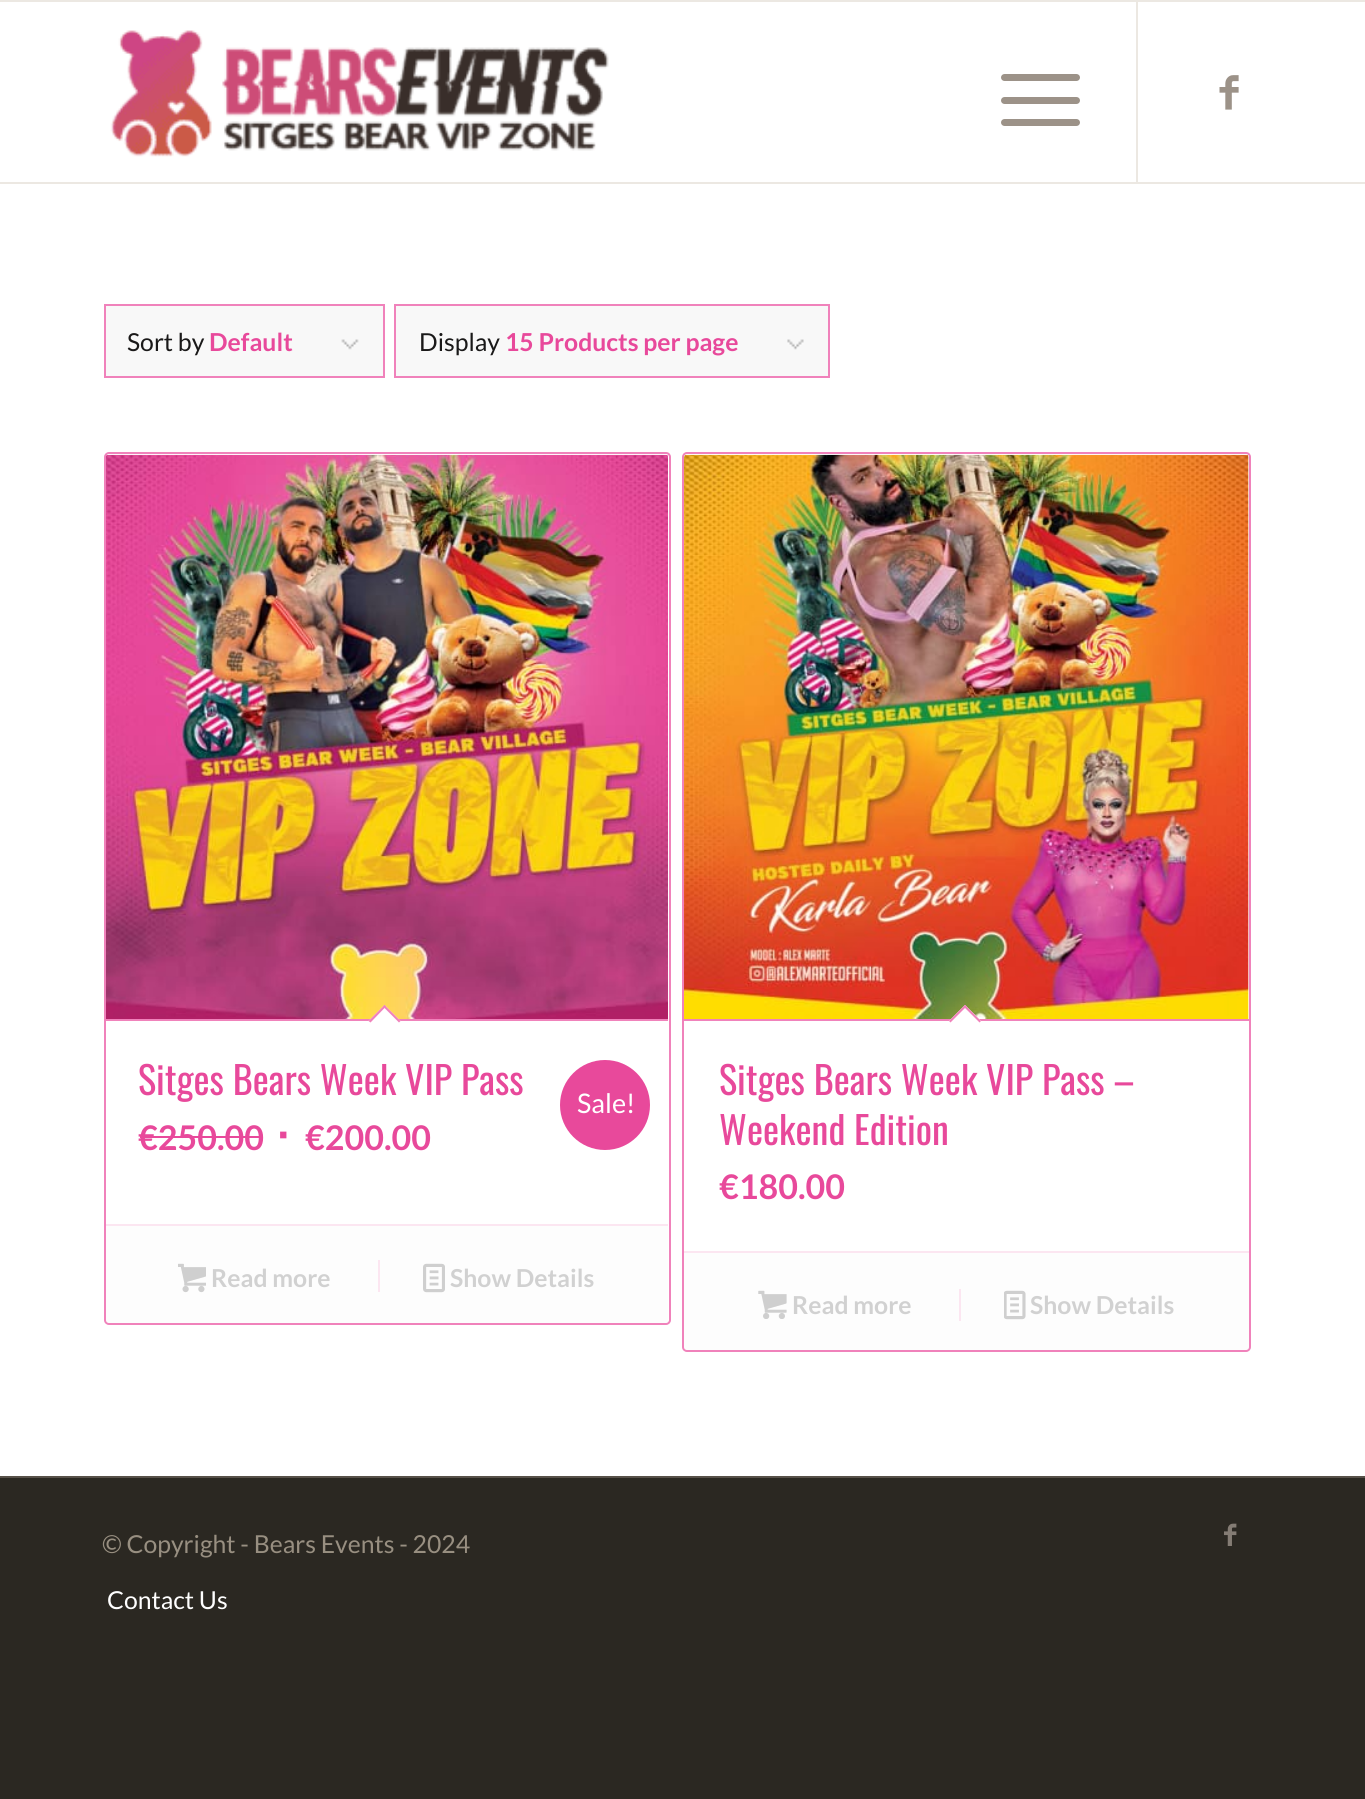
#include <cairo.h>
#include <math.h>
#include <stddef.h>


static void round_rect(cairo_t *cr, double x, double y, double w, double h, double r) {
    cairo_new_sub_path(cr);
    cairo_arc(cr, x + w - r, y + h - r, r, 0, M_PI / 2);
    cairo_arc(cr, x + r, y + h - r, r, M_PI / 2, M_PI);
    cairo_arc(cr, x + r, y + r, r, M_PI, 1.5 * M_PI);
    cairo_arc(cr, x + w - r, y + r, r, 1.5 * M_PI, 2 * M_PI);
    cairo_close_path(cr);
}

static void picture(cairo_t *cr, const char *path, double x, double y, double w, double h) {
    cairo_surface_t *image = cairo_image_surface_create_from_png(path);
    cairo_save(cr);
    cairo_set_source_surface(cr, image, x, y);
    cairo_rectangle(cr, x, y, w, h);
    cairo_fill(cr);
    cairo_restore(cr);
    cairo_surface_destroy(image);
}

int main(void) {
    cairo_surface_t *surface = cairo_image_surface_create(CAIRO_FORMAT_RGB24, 1365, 1799);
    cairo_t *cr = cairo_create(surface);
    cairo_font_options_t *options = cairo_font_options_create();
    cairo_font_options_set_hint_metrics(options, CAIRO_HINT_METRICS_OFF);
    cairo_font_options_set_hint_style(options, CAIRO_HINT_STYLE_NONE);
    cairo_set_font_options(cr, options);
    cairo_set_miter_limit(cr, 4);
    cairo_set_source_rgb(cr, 0.169, 0.157, 0.133);
    cairo_paint(cr);
    cairo_set_source_rgb(cr, 1, 1, 1);
    cairo_rectangle(cr, 0, 2, 1365, 1474);
    cairo_fill(cr);
    cairo_set_source_rgb(cr, 0.922, 0.91, 0.886);
    cairo_rectangle(cr, 0, 0, 1365, 2);
    cairo_fill(cr);
    cairo_rectangle(cr, 0, 182, 1365, 2);
    cairo_fill(cr);
    picture(cr, "img1.png", 110, 30, 499, 127);
    cairo_rectangle(cr, 1136, 2, 2, 180);
    cairo_fill(cr);
    cairo_set_source_rgb(cr, 0.612, 0.573, 0.533);
    round_rect(cr, 1001, 97, 79, 7, 3.5);
    cairo_fill(cr);
    round_rect(cr, 1001, 74, 79, 7, 3.5);
    cairo_fill(cr);
    round_rect(cr, 1001, 119, 79, 7, 3.5);
    cairo_fill(cr);
    picture(cr, "img2.png", 1219, 75, 20, 35);
    cairo_set_source_rgb(cr, 0.969, 0.969, 0.969);
    cairo_rectangle(cr, 106, 306, 277, 70);
    cairo_fill(cr);
    picture(cr, "img3.png", 341, 339, 18, 11);
    cairo_rectangle(cr, 105, 305, 279, 72);
    cairo_set_source_rgb(cr, 0.941, 0.51, 0.733);
    cairo_stroke(cr);
    cairo_select_font_face(cr, "Lato", CAIRO_FONT_SLANT_NORMAL, CAIRO_FONT_WEIGHT_NORMAL);
    cairo_set_font_size(cr, 24.75);
    cairo_set_source_rgb(cr, 0.102, 0.098, 0.098);
    cairo_move_to(cr, 127, 351);
    cairo_show_text(cr, "Sort by");
    cairo_select_font_face(cr, "Lato", CAIRO_FONT_SLANT_NORMAL, CAIRO_FONT_WEIGHT_BOLD);
    cairo_set_source_rgb(cr, 0.91, 0.286, 0.608);
    cairo_move_to(cr, 209, 351);
    cairo_show_text(cr, "Default");
    cairo_set_source_rgb(cr, 0.969, 0.969, 0.969);
    cairo_rectangle(cr, 396, 306, 432, 70);
    cairo_fill(cr);
    picture(cr, "img4.png", 787, 339, 17, 11);
    cairo_rectangle(cr, 395, 305, 434, 72);
    cairo_set_source_rgb(cr, 0.941, 0.51, 0.733);
    cairo_stroke(cr);
    cairo_select_font_face(cr, "Lato", CAIRO_FONT_SLANT_NORMAL, CAIRO_FONT_WEIGHT_NORMAL);
    cairo_set_source_rgb(cr, 0.102, 0.098, 0.098);
    cairo_move_to(cr, 419, 351);
    cairo_show_text(cr, "Display");
    cairo_select_font_face(cr, "Lato", CAIRO_FONT_SLANT_NORMAL, CAIRO_FONT_WEIGHT_BOLD);
    cairo_set_source_rgb(cr, 0.91, 0.286, 0.608);
    cairo_move_to(cr, 505, 351);
    cairo_show_text(cr, "15 Products per page");
    round_rect(cr, 105, 453, 565, 871, 4);
    cairo_set_source_rgb(cr, 0.941, 0.51, 0.733);
    cairo_stroke(cr);
    picture(cr, "img5.png", 106, 454, 562, 565);
    cairo_rectangle(cr, 106, 1019, 562, 2);
    cairo_fill(cr);
    cairo_set_source_rgb(cr, 1, 1, 1);
    cairo_new_path(cr);
    cairo_move_to(cr, 384.5, 1005);
    cairo_line_to(cr, 400.5, 1021);
    cairo_line_to(cr, 384.5, 1037);
    cairo_line_to(cr, 368.5, 1021);
    cairo_close_path(cr);
    cairo_fill(cr);
    cairo_set_source_rgb(cr, 0.941, 0.51, 0.733);
    cairo_new_path(cr);
    cairo_move_to(cr, 384.5, 1005);
    cairo_line_to(cr, 400.5, 1021);
    cairo_line_to(cr, 399, 1022.5);
    cairo_line_to(cr, 383, 1006.5);
    cairo_close_path(cr);
    cairo_fill(cr);
    cairo_new_path(cr);
    cairo_move_to(cr, 384.5, 1005);
    cairo_line_to(cr, 386, 1006.5);
    cairo_line_to(cr, 370.5, 1022.5);
    cairo_line_to(cr, 368.5, 1021);
    cairo_close_path(cr);
    cairo_fill(cr);
    cairo_select_font_face(cr, "Oswald", CAIRO_FONT_SLANT_NORMAL, CAIRO_FONT_WEIGHT_NORMAL);
    cairo_set_font_size(cr, 38.25);
    cairo_set_source_rgb(cr, 0.91, 0.286, 0.608);
    cairo_move_to(cr, 138, 1095);
    cairo_show_text(cr, "Sitges Bears Week VIP Pass");
    cairo_new_path(cr);
    cairo_arc(cr, 605, 1105, 45, 0, 2 * M_PI);
    cairo_fill(cr);
    cairo_select_font_face(cr, "Lato", CAIRO_FONT_SLANT_NORMAL, CAIRO_FONT_WEIGHT_NORMAL);
    cairo_set_font_size(cr, 27);
    cairo_set_source_rgb(cr, 1, 1, 1);
    cairo_move_to(cr, 577, 1113);
    cairo_show_text(cr, "Sale!");
    cairo_select_font_face(cr, "Lato", CAIRO_FONT_SLANT_NORMAL, CAIRO_FONT_WEIGHT_BOLD);
    cairo_set_font_size(cr, 34);
    cairo_set_source_rgb(cr, 0.91, 0.286, 0.608);
    cairo_move_to(cr, 138, 1150);
    cairo_show_text(cr, "€250.00");
    cairo_rectangle(cr, 140, 1136, 123, 2);
    cairo_fill(cr);
    cairo_select_font_face(cr, "Liberation Sans", CAIRO_FONT_SLANT_NORMAL, CAIRO_FONT_WEIGHT_BOLD);
    cairo_set_font_size(cr, 45);
    cairo_move_to(cr, 277, 1150);
    cairo_show_text(cr, "∙");
    cairo_select_font_face(cr, "Lato", CAIRO_FONT_SLANT_NORMAL, CAIRO_FONT_WEIGHT_BOLD);
    cairo_set_font_size(cr, 34);
    cairo_move_to(cr, 305, 1150);
    cairo_show_text(cr, "€200.00");
    cairo_set_source_rgba(cr, 0.969, 0.969, 0.969, 0.2);
    cairo_new_path(cr);
    cairo_move_to(cr, 106, 1224);
    cairo_line_to(cr, 668, 1224);
    cairo_line_to(cr, 668, 1321);
    cairo_curve_to(cr, 668, 1322, 667, 1323, 666, 1323);
    cairo_line_to(cr, 108, 1323);
    cairo_curve_to(cr, 107, 1323, 106, 1322, 106, 1321);
    cairo_close_path(cr);
    cairo_fill(cr);
    cairo_set_source_rgb(cr, 0.988, 0.902, 0.945);
    cairo_rectangle(cr, 106, 1224, 562, 2);
    cairo_fill(cr);
    picture(cr, "img6.png", 178, 1263, 28, 30);
    cairo_set_font_size(cr, 24.75);
    cairo_set_source_rgb(cr, 0.82, 0.82, 0.82);
    cairo_move_to(cr, 211, 1287);
    cairo_show_text(cr, "Read more");
    cairo_set_source_rgb(cr, 0.988, 0.902, 0.945);
    cairo_rectangle(cr, 378, 1260, 2, 32);
    cairo_fill(cr);
    picture(cr, "img7.png", 423, 1263, 22, 30);
    cairo_set_source_rgb(cr, 0.82, 0.82, 0.82);
    cairo_move_to(cr, 450, 1287);
    cairo_show_text(cr, "Show Details");
    round_rect(cr, 683, 453, 567, 898, 4);
    cairo_set_source_rgb(cr, 0.941, 0.51, 0.733);
    cairo_stroke(cr);
    picture(cr, "img8.png", 684, 454, 565, 565);
    cairo_rectangle(cr, 684, 1019, 565, 2);
    cairo_fill(cr);
    cairo_set_source_rgb(cr, 1, 1, 1);
    cairo_new_path(cr);
    cairo_move_to(cr, 965, 1005);
    cairo_line_to(cr, 981, 1021);
    cairo_line_to(cr, 965, 1037);
    cairo_line_to(cr, 949, 1021);
    cairo_close_path(cr);
    cairo_fill(cr);
    cairo_set_source_rgb(cr, 0.941, 0.51, 0.733);
    cairo_new_path(cr);
    cairo_move_to(cr, 965, 1005);
    cairo_line_to(cr, 981, 1021);
    cairo_line_to(cr, 979.5, 1022.5);
    cairo_line_to(cr, 963.5, 1006.5);
    cairo_close_path(cr);
    cairo_fill(cr);
    cairo_new_path(cr);
    cairo_move_to(cr, 965, 1005);
    cairo_line_to(cr, 966.5, 1006.5);
    cairo_line_to(cr, 950.5, 1022.5);
    cairo_line_to(cr, 949, 1021);
    cairo_close_path(cr);
    cairo_fill(cr);
    cairo_select_font_face(cr, "Oswald", CAIRO_FONT_SLANT_NORMAL, CAIRO_FONT_WEIGHT_NORMAL);
    cairo_set_font_size(cr, 38.25);
    cairo_set_source_rgb(cr, 0.91, 0.286, 0.608);
    cairo_move_to(cr, 719, 1095);
    cairo_show_text(cr, "Sitges Bears Week VIP Pass –");
    cairo_move_to(cr, 719, 1145);
    cairo_show_text(cr, "Weekend Edition");
    cairo_select_font_face(cr, "Lato", CAIRO_FONT_SLANT_NORMAL, CAIRO_FONT_WEIGHT_BOLD);
    cairo_set_font_size(cr, 34);
    cairo_move_to(cr, 719, 1199);
    cairo_show_text(cr, "€180.00");
    cairo_set_source_rgba(cr, 0.969, 0.969, 0.969, 0.2);
    cairo_new_path(cr);
    cairo_move_to(cr, 684, 1251);
    cairo_line_to(cr, 1249, 1251);
    cairo_line_to(cr, 1249, 1348);
    cairo_curve_to(cr, 1249, 1349, 1248, 1350, 1247, 1350);
    cairo_line_to(cr, 686, 1350);
    cairo_curve_to(cr, 685, 1350, 684, 1349, 684, 1348);
    cairo_close_path(cr);
    cairo_fill(cr);
    cairo_set_source_rgb(cr, 0.988, 0.902, 0.945);
    cairo_rectangle(cr, 684, 1251, 565, 2);
    cairo_fill(cr);
    picture(cr, "img9.png", 758, 1290, 29, 29);
    cairo_set_font_size(cr, 24.75);
    cairo_set_source_rgb(cr, 0.82, 0.82, 0.82);
    cairo_move_to(cr, 792, 1314);
    cairo_show_text(cr, "Read more");
    cairo_set_source_rgb(cr, 0.988, 0.902, 0.945);
    cairo_rectangle(cr, 959, 1289, 2, 32);
    cairo_fill(cr);
    picture(cr, "img10.png", 1004, 1290, 22, 30);
    cairo_set_source_rgb(cr, 0.82, 0.82, 0.82);
    cairo_move_to(cr, 1030, 1314);
    cairo_show_text(cr, "Show Details");
    cairo_set_source_rgb(cr, 0.341, 0.318, 0.286);
    cairo_rectangle(cr, 0, 1476, 1365, 2);
    cairo_fill(cr);
    cairo_select_font_face(cr, "Lato", CAIRO_FONT_SLANT_NORMAL, CAIRO_FONT_WEIGHT_NORMAL);
    cairo_set_source_rgb(cr, 0.596, 0.561, 0.506);
    cairo_move_to(cr, 102, 1553);
    cairo_show_text(cr, "© Copyright - Bears Events - 2024");
    picture(cr, "img11.png", 1224, 1523, 13, 23);
    cairo_set_source_rgb(cr, 1, 1, 1);
    cairo_move_to(cr, 107, 1609);
    cairo_show_text(cr, "Contact Us");
    cairo_surface_write_to_png(surface, "page.png");
    cairo_font_options_destroy(options);
    cairo_destroy(cr);
    cairo_surface_destroy(surface);
    return 0;
}
